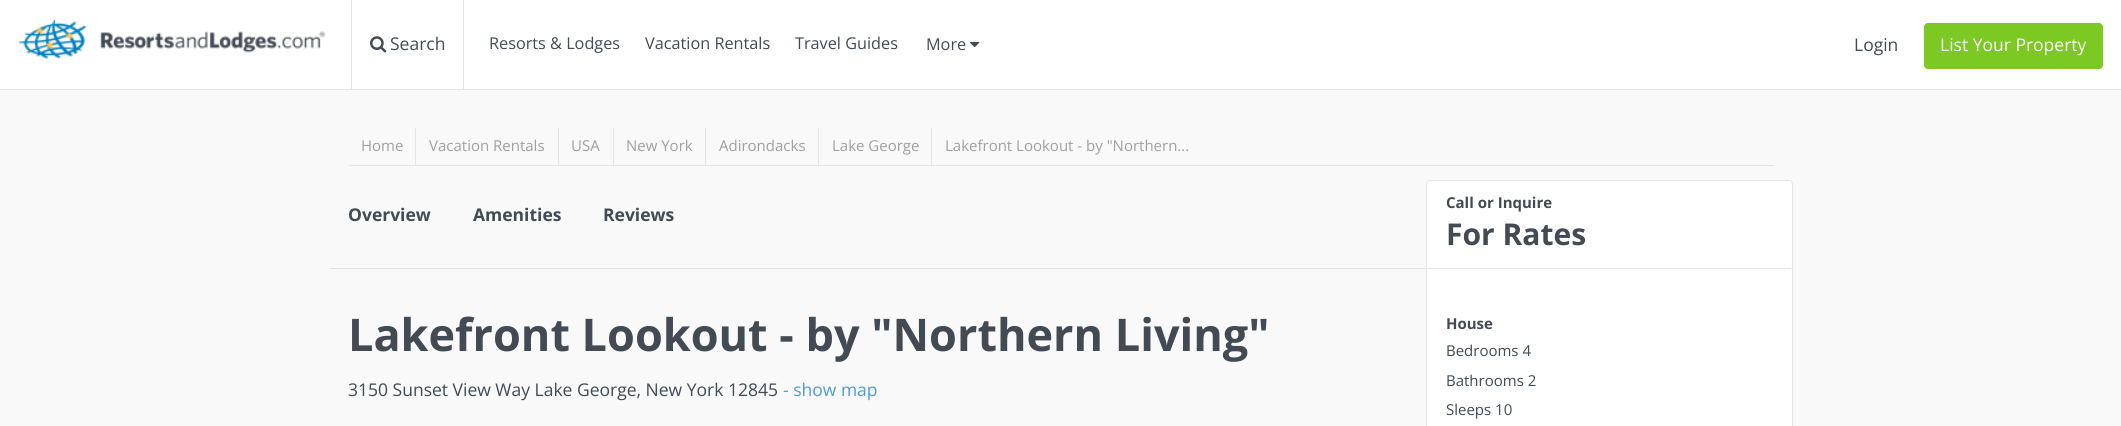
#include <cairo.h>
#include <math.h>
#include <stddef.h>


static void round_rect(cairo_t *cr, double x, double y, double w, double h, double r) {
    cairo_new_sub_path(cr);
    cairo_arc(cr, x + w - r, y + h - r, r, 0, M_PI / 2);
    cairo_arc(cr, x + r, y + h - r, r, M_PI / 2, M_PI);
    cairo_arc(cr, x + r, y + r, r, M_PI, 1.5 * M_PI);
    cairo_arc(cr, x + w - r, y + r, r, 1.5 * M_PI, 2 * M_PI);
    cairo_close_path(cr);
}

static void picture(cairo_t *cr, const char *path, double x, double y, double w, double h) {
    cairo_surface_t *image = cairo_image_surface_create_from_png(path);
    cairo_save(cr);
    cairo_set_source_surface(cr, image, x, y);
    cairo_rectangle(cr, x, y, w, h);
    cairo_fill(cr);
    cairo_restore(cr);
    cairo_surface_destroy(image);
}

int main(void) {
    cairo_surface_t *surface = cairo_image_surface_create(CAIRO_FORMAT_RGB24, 2121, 426);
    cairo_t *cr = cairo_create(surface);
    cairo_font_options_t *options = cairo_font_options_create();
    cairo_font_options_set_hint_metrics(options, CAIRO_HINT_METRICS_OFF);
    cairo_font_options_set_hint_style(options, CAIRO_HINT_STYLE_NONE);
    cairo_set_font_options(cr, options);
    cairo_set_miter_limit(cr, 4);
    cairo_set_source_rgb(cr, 0.973, 0.973, 0.973);
    cairo_paint(cr);
    cairo_set_source_rgb(cr, 1, 1, 1);
    cairo_rectangle(cr, 0, 0, 2121, 89);
    cairo_fill(cr);
    cairo_set_source_rgb(cr, 0.898, 0.898, 0.898);
    cairo_rectangle(cr, 0, 89, 2121, 1);
    cairo_fill(cr);
    cairo_rectangle(cr, 351, 0, 1, 89);
    cairo_fill(cr);
    picture(cr, "img1.png", 18, 20, 308, 39);
    picture(cr, "img2.png", 370, 36, 17, 17);
    cairo_select_font_face(cr, "Open Sans", CAIRO_FONT_SLANT_NORMAL, CAIRO_FONT_WEIGHT_NORMAL);
    cairo_set_font_size(cr, 17.5);
    cairo_set_source_rgb(cr, 0.259, 0.29, 0.329);
    cairo_move_to(cr, 390, 50);
    cairo_show_text(cr, "Search");
    cairo_set_source_rgb(cr, 0.898, 0.898, 0.898);
    cairo_rectangle(cr, 463, 0, 1, 89);
    cairo_fill(cr);
    cairo_set_font_size(cr, 16.25);
    cairo_set_source_rgb(cr, 0.259, 0.29, 0.329);
    cairo_move_to(cr, 489, 49);
    cairo_show_text(cr, "Resorts & Lodges");
    cairo_move_to(cr, 645, 49);
    cairo_show_text(cr, "Vacation Rentals");
    cairo_move_to(cr, 795, 49);
    cairo_show_text(cr, "Travel Guides");
    cairo_move_to(cr, 926, 50);
    cairo_show_text(cr, "More");
    picture(cr, "img3.png", 970, 41, 10, 6);
    cairo_set_font_size(cr, 17.5);
    cairo_move_to(cr, 1854, 51);
    cairo_show_text(cr, "Login");
    cairo_set_source_rgb(cr, 0.486, 0.788, 0.141);
    round_rect(cr, 1924.5, 23.5, 178, 45, 3.5);
    cairo_fill_preserve(cr);
    cairo_set_line_width(cr, 1);
    cairo_stroke(cr);
    cairo_set_source_rgb(cr, 1, 1, 1);
    cairo_move_to(cr, 1940, 51);
    cairo_show_text(cr, "List Your Property");
    cairo_set_source_rgb(cr, 0.898, 0.898, 0.898);
    cairo_rectangle(cr, 349, 165, 1425, 1);
    cairo_fill(cr);
    cairo_rectangle(cr, 415, 128, 1, 37);
    cairo_fill(cr);
    cairo_set_font_size(cr, 15);
    cairo_set_source_rgb(cr, 0.627, 0.627, 0.627);
    cairo_move_to(cr, 361, 151);
    cairo_show_text(cr, "Home");
    cairo_set_source_rgb(cr, 0.898, 0.898, 0.898);
    cairo_rectangle(cr, 558, 128, 1, 37);
    cairo_fill(cr);
    cairo_set_source_rgb(cr, 0.627, 0.627, 0.627);
    cairo_move_to(cr, 429, 151);
    cairo_show_text(cr, "Vacation Rentals");
    cairo_set_source_rgb(cr, 0.898, 0.898, 0.898);
    cairo_rectangle(cr, 613, 128, 1, 37);
    cairo_fill(cr);
    cairo_set_source_rgb(cr, 0.627, 0.627, 0.627);
    cairo_move_to(cr, 571, 151);
    cairo_show_text(cr, "USA");
    cairo_set_source_rgb(cr, 0.898, 0.898, 0.898);
    cairo_rectangle(cr, 705, 128, 1, 37);
    cairo_fill(cr);
    cairo_set_source_rgb(cr, 0.627, 0.627, 0.627);
    cairo_move_to(cr, 626, 151);
    cairo_show_text(cr, "New York");
    cairo_set_source_rgb(cr, 0.898, 0.898, 0.898);
    cairo_rectangle(cr, 818, 128, 1, 37);
    cairo_fill(cr);
    cairo_set_source_rgb(cr, 0.627, 0.627, 0.627);
    cairo_move_to(cr, 719, 151);
    cairo_show_text(cr, "Adirondacks");
    cairo_set_source_rgb(cr, 0.898, 0.898, 0.898);
    cairo_rectangle(cr, 931, 128, 1, 37);
    cairo_fill(cr);
    cairo_set_source_rgb(cr, 0.627, 0.627, 0.627);
    cairo_move_to(cr, 832, 151);
    cairo_show_text(cr, "Lake George");
    cairo_move_to(cr, 945, 151);
    cairo_show_text(cr, "Lakefront Lookout - by \"Northern...");
    cairo_set_source_rgb(cr, 0.898, 0.898, 0.898);
    cairo_rectangle(cr, 330, 268, 1096, 1);
    cairo_fill(cr);
    cairo_select_font_face(cr, "Open Sans", CAIRO_FONT_SLANT_NORMAL, CAIRO_FONT_WEIGHT_BOLD);
    cairo_set_font_size(cr, 17.5);
    cairo_set_source_rgb(cr, 0.259, 0.29, 0.329);
    cairo_move_to(cr, 348, 221);
    cairo_show_text(cr, "Overview");
    cairo_move_to(cr, 473, 221);
    cairo_show_text(cr, "Amenities");
    cairo_move_to(cr, 603, 221);
    cairo_show_text(cr, "Reviews");
    cairo_set_source_rgb(cr, 1, 1, 1);
    round_rect(cr, 1426.5, 180.5, 366, 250, 3.5);
    cairo_fill_preserve(cr);
    cairo_set_source_rgb(cr, 0.898, 0.898, 0.898);
    cairo_stroke(cr);
    cairo_set_source_rgb(cr, 1, 1, 1);
    cairo_rectangle(cr, 1428, 181, 363, 1);
    cairo_fill(cr);
    cairo_set_source_rgb(cr, 0.898, 0.898, 0.898);
    cairo_rectangle(cr, 1428, 268, 363, 1);
    cairo_fill(cr);
    cairo_set_font_size(cr, 15);
    cairo_set_source_rgb(cr, 0.259, 0.29, 0.329);
    cairo_move_to(cr, 1446, 208);
    cairo_show_text(cr, "Call or Inquire");
    cairo_set_font_size(cr, 30);
    cairo_move_to(cr, 1446, 245);
    cairo_show_text(cr, "For Rates");
    cairo_set_font_size(cr, 15);
    cairo_move_to(cr, 1446, 329);
    cairo_show_text(cr, "House");
    cairo_select_font_face(cr, "Open Sans", CAIRO_FONT_SLANT_NORMAL, CAIRO_FONT_WEIGHT_NORMAL);
    cairo_move_to(cr, 1446, 356);
    cairo_show_text(cr, "Bedrooms 4");
    cairo_move_to(cr, 1446, 386);
    cairo_show_text(cr, "Bathrooms 2");
    cairo_move_to(cr, 1446, 415);
    cairo_show_text(cr, "Sleeps 10");
    cairo_select_font_face(cr, "Open Sans", CAIRO_FONT_SLANT_NORMAL, CAIRO_FONT_WEIGHT_BOLD);
    cairo_set_font_size(cr, 45);
    cairo_move_to(cr, 348, 351);
    cairo_show_text(cr, "Lakefront Lookout - by \"Northern Living\"");
    cairo_select_font_face(cr, "Open Sans", CAIRO_FONT_SLANT_NORMAL, CAIRO_FONT_WEIGHT_NORMAL);
    cairo_set_font_size(cr, 17.5);
    cairo_move_to(cr, 348, 396);
    cairo_show_text(cr, "3150 Sunset View Way Lake George, New York 12845");
    cairo_set_source_rgb(cr, 0.29, 0.608, 0.878);
    cairo_move_to(cr, 783, 396);
    cairo_show_text(cr, "- show map");
    cairo_surface_write_to_png(surface, "page.png");
    cairo_font_options_destroy(options);
    cairo_destroy(cr);
    cairo_surface_destroy(surface);
    return 0;
}
